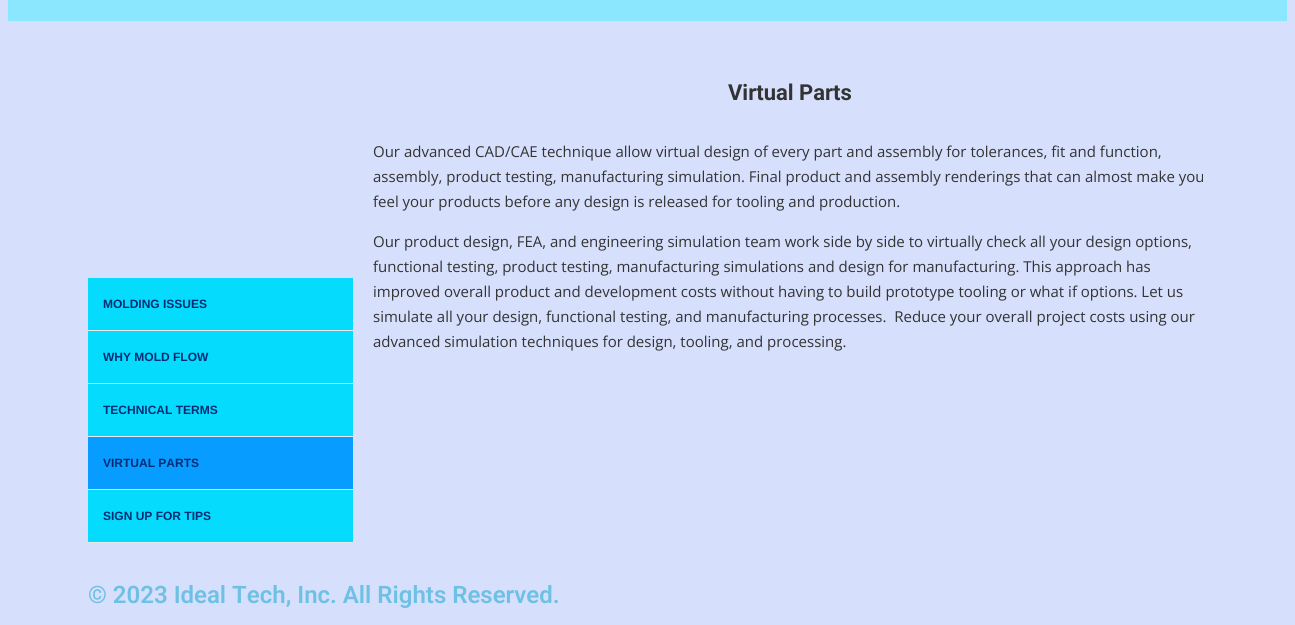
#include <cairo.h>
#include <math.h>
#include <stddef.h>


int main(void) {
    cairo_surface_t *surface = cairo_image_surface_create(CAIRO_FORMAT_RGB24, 1295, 625);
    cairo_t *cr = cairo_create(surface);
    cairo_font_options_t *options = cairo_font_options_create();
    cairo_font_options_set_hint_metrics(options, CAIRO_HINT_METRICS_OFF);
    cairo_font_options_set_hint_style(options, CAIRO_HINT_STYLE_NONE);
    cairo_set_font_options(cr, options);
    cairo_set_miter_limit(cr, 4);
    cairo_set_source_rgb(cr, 0.839, 0.875, 0.988);
    cairo_paint(cr);
    cairo_set_source_rgb(cr, 0.545, 0.906, 0.992);
    cairo_rectangle(cr, 8, 0, 1279, 21);
    cairo_fill(cr);
    cairo_select_font_face(cr, "Roboto", CAIRO_FONT_SLANT_NORMAL, CAIRO_FONT_WEIGHT_BOLD);
    cairo_set_font_size(cr, 22);
    cairo_set_source_rgb(cr, 0.2, 0.2, 0.2);
    cairo_move_to(cr, 728, 100);
    cairo_show_text(cr, "Virtual Parts");
    cairo_select_font_face(cr, "Open Sans", CAIRO_FONT_SLANT_NORMAL, CAIRO_FONT_WEIGHT_NORMAL);
    cairo_set_font_size(cr, 15);
    cairo_move_to(cr, 373, 157);
    cairo_show_text(cr, "Our advanced CAD/CAE technique allow virtual design of every part and assembly for tolerances, fit and function,");
    cairo_move_to(cr, 373, 182);
    cairo_show_text(cr, "assembly, product testing, manufacturing simulation. Final product and assembly renderings that can almost make you");
    cairo_move_to(cr, 373, 207);
    cairo_show_text(cr, "feel your products before any design is released for tooling and production.");
    cairo_move_to(cr, 373, 247);
    cairo_show_text(cr, "Our product design, FEA, and engineering simulation team work side by side to virtually check all your design options,");
    cairo_move_to(cr, 373, 272);
    cairo_show_text(cr, "functional testing, product testing, manufacturing simulations and design for manufacturing. This approach has");
    cairo_move_to(cr, 373, 297);
    cairo_show_text(cr, "improved overall product and development costs without having to build prototype tooling or what if options. Let us");
    cairo_move_to(cr, 373, 322);
    cairo_show_text(cr, "simulate all your design, functional testing, and manufacturing processes.  Reduce your overall project costs using our");
    cairo_move_to(cr, 373, 347);
    cairo_show_text(cr, "advanced simulation techniques for design, tooling, and processing.");
    cairo_set_source_rgb(cr, 0.91, 0.91, 0.91);
    cairo_rectangle(cr, 88, 330, 265, 1);
    cairo_fill(cr);
    cairo_set_source_rgb(cr, 0.02, 0.859, 0.988);
    cairo_rectangle(cr, 88, 278, 265, 52);
    cairo_fill(cr);
    cairo_select_font_face(cr, "Liberation Sans", CAIRO_FONT_SLANT_NORMAL, CAIRO_FONT_WEIGHT_BOLD);
    cairo_set_font_size(cr, 12);
    cairo_set_source_rgb(cr, 0.008, 0.176, 0.459);
    cairo_move_to(cr, 103, 308);
    cairo_show_text(cr, "MOLDING ISSUES");
    cairo_set_source_rgb(cr, 0.91, 0.91, 0.91);
    cairo_rectangle(cr, 88, 383, 265, 1);
    cairo_fill(cr);
    cairo_set_source_rgb(cr, 0.02, 0.859, 0.988);
    cairo_rectangle(cr, 88, 331, 265, 52);
    cairo_fill(cr);
    cairo_set_source_rgb(cr, 0.008, 0.176, 0.459);
    cairo_move_to(cr, 103, 361);
    cairo_show_text(cr, "WHY MOLD FLOW");
    cairo_set_source_rgb(cr, 0.91, 0.91, 0.91);
    cairo_rectangle(cr, 88, 436, 265, 1);
    cairo_fill(cr);
    cairo_set_source_rgb(cr, 0.02, 0.859, 0.988);
    cairo_rectangle(cr, 88, 384, 265, 52);
    cairo_fill(cr);
    cairo_set_source_rgb(cr, 0.008, 0.176, 0.459);
    cairo_move_to(cr, 103, 414);
    cairo_show_text(cr, "TECHNICAL TERMS");
    cairo_set_source_rgb(cr, 0.91, 0.91, 0.91);
    cairo_rectangle(cr, 88, 489, 265, 1);
    cairo_fill(cr);
    cairo_set_source_rgb(cr, 0.031, 0.612, 1);
    cairo_rectangle(cr, 88, 437, 265, 52);
    cairo_fill(cr);
    cairo_set_source_rgb(cr, 0.008, 0.176, 0.459);
    cairo_move_to(cr, 103, 467);
    cairo_show_text(cr, "VIRTUAL PARTS");
    cairo_set_source_rgb(cr, 0.91, 0.91, 0.91);
    cairo_rectangle(cr, 88, 542, 265, 1);
    cairo_fill(cr);
    cairo_set_source_rgb(cr, 0.02, 0.859, 0.988);
    cairo_rectangle(cr, 88, 490, 265, 52);
    cairo_fill(cr);
    cairo_set_source_rgb(cr, 0.008, 0.176, 0.459);
    cairo_move_to(cr, 103, 520);
    cairo_show_text(cr, "SIGN UP FOR TIPS");
    cairo_select_font_face(cr, "Roboto SemiBold", CAIRO_FONT_SLANT_NORMAL, CAIRO_FONT_WEIGHT_NORMAL);
    cairo_set_font_size(cr, 24);
    cairo_set_source_rgb(cr, 0.431, 0.757, 0.894);
    cairo_move_to(cr, 88, 603);
    cairo_show_text(cr, "© 2023 Ideal Tech, Inc. All Rights Reserved.");
    cairo_surface_write_to_png(surface, "page.png");
    cairo_font_options_destroy(options);
    cairo_destroy(cr);
    cairo_surface_destroy(surface);
    return 0;
}
